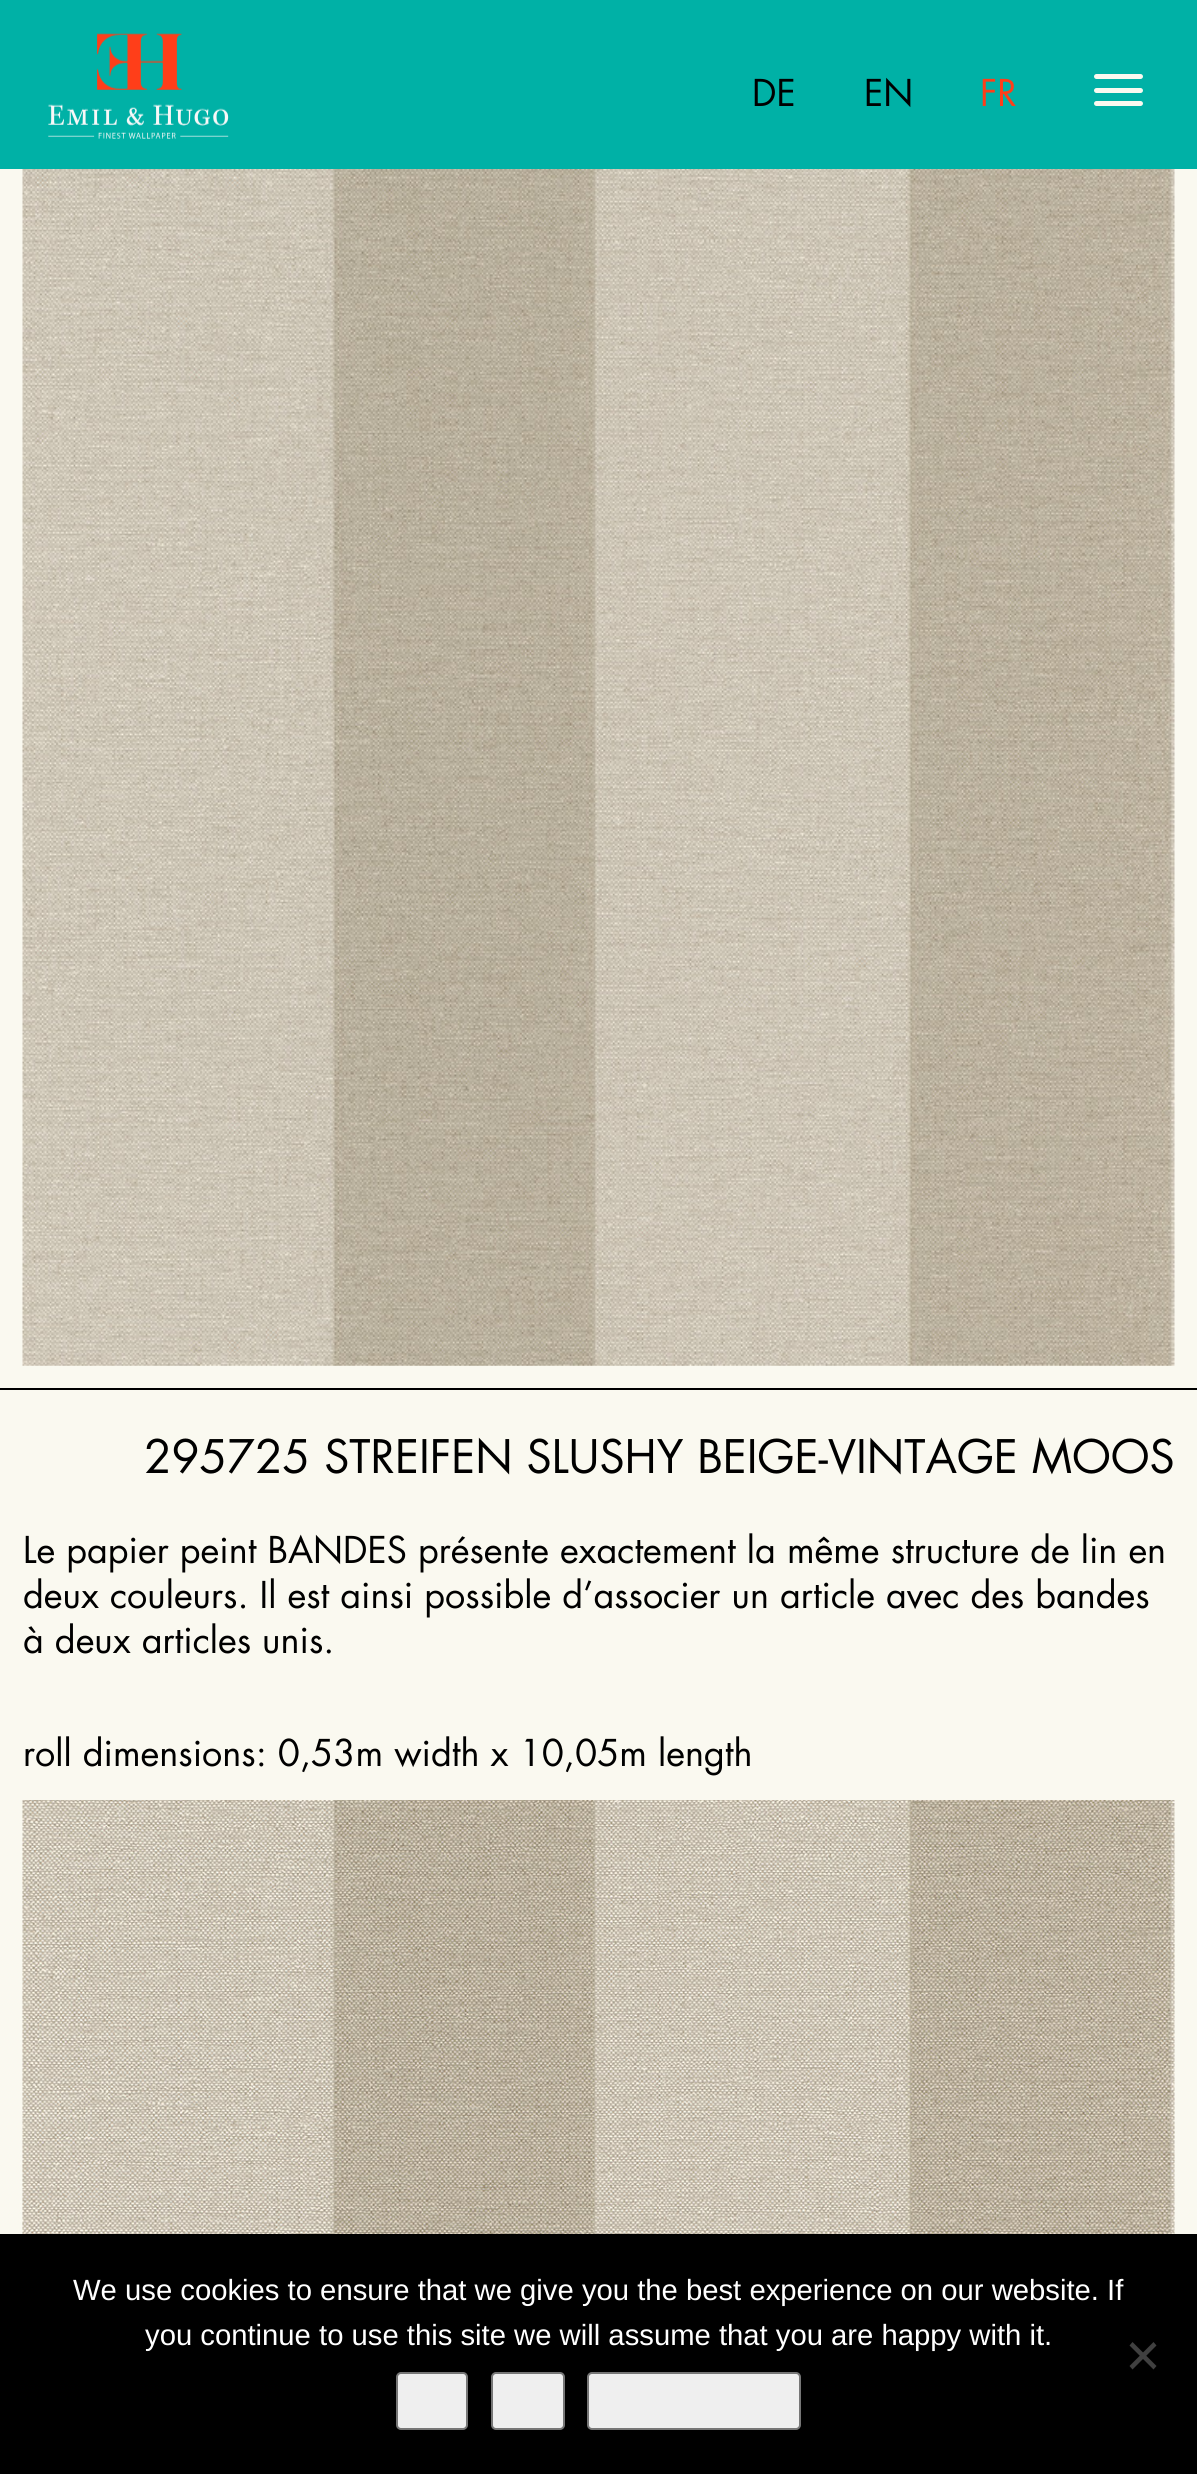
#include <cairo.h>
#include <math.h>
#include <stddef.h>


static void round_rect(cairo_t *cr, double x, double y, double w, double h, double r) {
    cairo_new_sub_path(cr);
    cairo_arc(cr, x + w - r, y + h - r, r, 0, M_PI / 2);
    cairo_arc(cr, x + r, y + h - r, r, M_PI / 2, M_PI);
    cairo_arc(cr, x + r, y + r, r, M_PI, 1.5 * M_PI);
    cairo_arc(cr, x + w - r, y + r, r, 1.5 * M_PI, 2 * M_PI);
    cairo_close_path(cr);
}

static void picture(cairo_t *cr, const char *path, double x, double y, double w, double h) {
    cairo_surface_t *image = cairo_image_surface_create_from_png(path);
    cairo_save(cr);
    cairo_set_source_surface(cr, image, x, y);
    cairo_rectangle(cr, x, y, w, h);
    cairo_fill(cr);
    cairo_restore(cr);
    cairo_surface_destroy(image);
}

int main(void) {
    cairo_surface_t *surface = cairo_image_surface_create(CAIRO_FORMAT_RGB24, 1197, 2474);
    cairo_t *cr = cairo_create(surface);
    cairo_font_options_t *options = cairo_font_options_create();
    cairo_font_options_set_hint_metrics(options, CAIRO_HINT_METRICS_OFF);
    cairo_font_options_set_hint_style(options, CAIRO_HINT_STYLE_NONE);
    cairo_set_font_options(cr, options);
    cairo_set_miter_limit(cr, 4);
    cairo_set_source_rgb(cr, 0.98, 0.973, 0.941);
    cairo_paint(cr);
    cairo_set_source_rgb(cr, 0, 0.694, 0.651);
    cairo_rectangle(cr, 0, 0, 1197, 169);
    cairo_fill(cr);
    picture(cr, "img1.png", 48, 33, 181, 106);
    cairo_select_font_face(cr, "Futura", CAIRO_FONT_SLANT_NORMAL, CAIRO_FONT_WEIGHT_NORMAL);
    cairo_set_font_size(cr, 36);
    cairo_set_source_rgb(cr, 0, 0, 0);
    cairo_move_to(cr, 752, 106);
    cairo_show_text(cr, "DE");
    cairo_move_to(cr, 864, 106);
    cairo_show_text(cr, "EN");
    cairo_set_source_rgb(cr, 1, 0.243, 0.098);
    cairo_move_to(cr, 980, 106);
    cairo_show_text(cr, "FR");
    cairo_set_source_rgb(cr, 0.98, 0.973, 0.941);
    round_rect(cr, 1094, 74, 49, 5, 2.5);
    cairo_fill(cr);
    round_rect(cr, 1094, 88, 49, 5, 2.5);
    cairo_fill(cr);
    round_rect(cr, 1094, 101, 49, 5, 2.5);
    cairo_fill(cr);
    picture(cr, "img2.png", 22, 169, 1153, 1197);
    cairo_set_source_rgb(cr, 0, 0, 0);
    cairo_rectangle(cr, 0, 1388, 1197, 2);
    cairo_fill(cr);
    cairo_set_font_size(cr, 45);
    cairo_move_to(cr, 144, 1473);
    cairo_show_text(cr, "295725 STREIFEN SLUSHY BEIGE-VINTAGE MOOS");
    cairo_set_font_size(cr, 36);
    cairo_move_to(cr, 23, 1563);
    cairo_show_text(cr, "Le papier peint BANDES présente exactement la même structure de lin en");
    cairo_move_to(cr, 23, 1608);
    cairo_show_text(cr, "deux couleurs. Il est ainsi possible d’associer un article avec des bandes");
    cairo_move_to(cr, 23, 1653);
    cairo_show_text(cr, "à deux articles unis.");
    cairo_move_to(cr, 23, 1766);
    cairo_show_text(cr, "roll dimensions: 0,53m width x 10,05m length");
    picture(cr, "img3.png", 22, 1800, 1153, 434);
    cairo_rectangle(cr, 0, 2234, 1197, 240);
    cairo_fill(cr);
    cairo_select_font_face(cr, "Liberation Sans", CAIRO_FONT_SLANT_NORMAL, CAIRO_FONT_WEIGHT_NORMAL);
    cairo_set_font_size(cr, 29.25);
    cairo_set_source_rgb(cr, 1, 1, 1);
    cairo_move_to(cr, 73, 2300);
    cairo_show_text(cr, "We use cookies to ensure that we give you the best experience on our website. If");
    cairo_move_to(cr, 145, 2345);
    cairo_show_text(cr, "you continue to use this site we will assume that you are happy with it.");
    cairo_set_source_rgb(cr, 0.251, 0.251, 0.251);
    cairo_new_path(cr);
    cairo_move_to(cr, 1153.5, 2342);
    cairo_line_to(cr, 1156.5, 2345.5);
    cairo_line_to(cr, 1132.5, 2369.5);
    cairo_line_to(cr, 1129.5, 2366);
    cairo_close_path(cr);
    cairo_fill(cr);
    cairo_new_path(cr);
    cairo_move_to(cr, 1129.5, 2345.5);
    cairo_line_to(cr, 1132.5, 2342);
    cairo_line_to(cr, 1156.5, 2366);
    cairo_line_to(cr, 1153.5, 2369.5);
    cairo_close_path(cr);
    cairo_fill(cr);
    cairo_set_source_rgb(cr, 0.937, 0.937, 0.937);
    round_rect(cr, 397, 2373, 70, 56, 4);
    cairo_fill_preserve(cr);
    cairo_set_source_rgb(cr, 0.463, 0.463, 0.463);
    cairo_stroke(cr);
    cairo_set_source_rgb(cr, 0.937, 0.937, 0.937);
    round_rect(cr, 492, 2373, 72, 56, 4);
    cairo_fill_preserve(cr);
    cairo_set_source_rgb(cr, 0.463, 0.463, 0.463);
    cairo_stroke(cr);
    cairo_set_source_rgb(cr, 0.937, 0.937, 0.937);
    round_rect(cr, 588, 2373, 212, 56, 4);
    cairo_fill_preserve(cr);
    cairo_set_source_rgb(cr, 0.463, 0.463, 0.463);
    cairo_stroke(cr);
    cairo_surface_write_to_png(surface, "page.png");
    cairo_font_options_destroy(options);
    cairo_destroy(cr);
    cairo_surface_destroy(surface);
    return 0;
}
